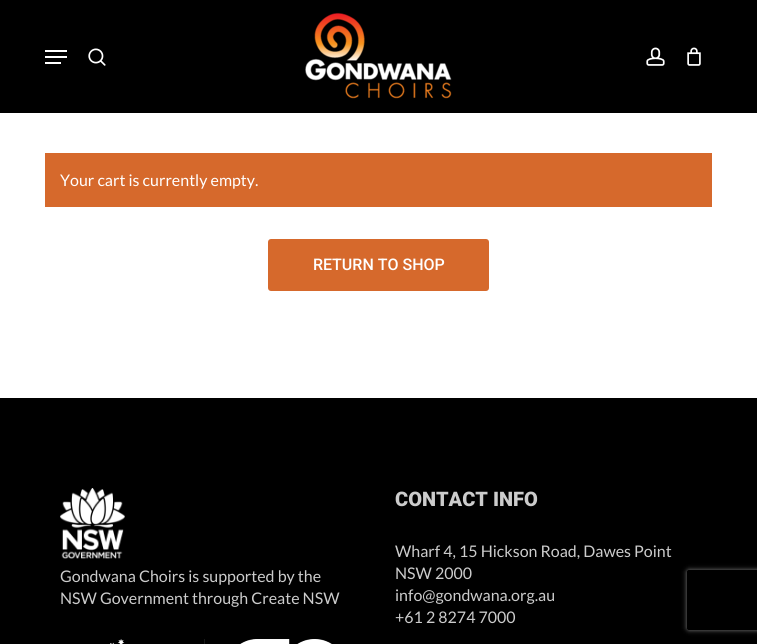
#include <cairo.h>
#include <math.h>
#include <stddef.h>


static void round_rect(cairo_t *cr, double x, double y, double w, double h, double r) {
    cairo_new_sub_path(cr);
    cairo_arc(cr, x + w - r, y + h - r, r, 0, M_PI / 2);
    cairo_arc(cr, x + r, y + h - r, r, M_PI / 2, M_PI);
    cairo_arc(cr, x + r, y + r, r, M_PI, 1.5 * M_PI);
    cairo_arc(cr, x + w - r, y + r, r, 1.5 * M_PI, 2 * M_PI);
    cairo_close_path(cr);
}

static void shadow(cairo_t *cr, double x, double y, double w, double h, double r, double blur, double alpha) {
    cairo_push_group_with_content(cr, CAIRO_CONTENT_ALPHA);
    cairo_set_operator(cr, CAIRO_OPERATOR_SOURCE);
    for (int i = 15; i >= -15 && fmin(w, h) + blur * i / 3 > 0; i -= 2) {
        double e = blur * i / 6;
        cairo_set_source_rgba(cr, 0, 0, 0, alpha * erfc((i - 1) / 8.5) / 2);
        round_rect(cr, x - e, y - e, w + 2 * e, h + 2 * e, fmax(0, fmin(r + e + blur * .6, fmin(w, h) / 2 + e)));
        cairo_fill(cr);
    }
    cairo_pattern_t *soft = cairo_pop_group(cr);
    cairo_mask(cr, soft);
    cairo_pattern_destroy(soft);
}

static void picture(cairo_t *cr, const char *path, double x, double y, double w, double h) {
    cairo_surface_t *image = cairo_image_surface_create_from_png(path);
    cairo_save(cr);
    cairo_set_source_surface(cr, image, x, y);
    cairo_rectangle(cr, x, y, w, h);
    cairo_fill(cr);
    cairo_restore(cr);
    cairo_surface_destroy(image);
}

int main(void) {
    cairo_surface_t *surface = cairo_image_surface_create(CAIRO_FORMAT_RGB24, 757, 644);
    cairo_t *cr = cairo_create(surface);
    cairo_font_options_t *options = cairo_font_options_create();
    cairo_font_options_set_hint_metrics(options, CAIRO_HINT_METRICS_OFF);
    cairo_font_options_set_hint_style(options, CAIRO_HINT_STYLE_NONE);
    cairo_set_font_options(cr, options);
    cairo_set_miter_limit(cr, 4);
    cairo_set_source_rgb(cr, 1, 1, 1);
    cairo_paint(cr);
    cairo_set_source_rgb(cr, 0, 0, 0);
    cairo_rectangle(cr, 0, 0, 757, 113);
    cairo_fill(cr);
    picture(cr, "img1.png", 305, 12, 147, 87);
    cairo_set_source_rgb(cr, 1, 1, 1);
    cairo_rectangle(cr, 45, 50, 22, 2);
    cairo_fill(cr);
    cairo_rectangle(cr, 45, 62, 16, 2);
    cairo_fill(cr);
    cairo_rectangle(cr, 45, 56, 22, 2);
    cairo_fill(cr);
    picture(cr, "img2.png", 88, 48, 18, 18);
    picture(cr, "img3.png", 646, 47, 19, 19);
    picture(cr, "img4.png", 687, 47, 14, 19);
    cairo_set_source_rgb(cr, 0.839, 0.412, 0.173);
    cairo_rectangle(cr, 45, 153, 667, 54);
    cairo_fill(cr);
    cairo_select_font_face(cr, "Lato", CAIRO_FONT_SLANT_NORMAL, CAIRO_FONT_WEIGHT_NORMAL);
    cairo_set_font_size(cr, 16);
    cairo_set_source_rgb(cr, 1, 1, 1);
    cairo_move_to(cr, 60, 186);
    cairo_show_text(cr, "Your cart is currently empty.");
    cairo_set_source_rgb(cr, 0.839, 0.412, 0.173);
    round_rect(cr, 268, 239, 221, 52, 3);
    cairo_fill(cr);
    cairo_select_font_face(cr, "Roboto Medium", CAIRO_FONT_SLANT_NORMAL, CAIRO_FONT_WEIGHT_NORMAL);
    cairo_set_source_rgb(cr, 1, 1, 1);
    cairo_move_to(cr, 313, 270);
    cairo_show_text(cr, "RETURN TO SHOP");
    cairo_set_source_rgb(cr, 0, 0, 0);
    cairo_rectangle(cr, 0, 398, 757, 246);
    cairo_fill(cr);
    picture(cr, "img5.png", 60, 488, 65, 71);
    cairo_select_font_face(cr, "Lato", CAIRO_FONT_SLANT_NORMAL, CAIRO_FONT_WEIGHT_NORMAL);
    cairo_set_source_rgb(cr, 0.8, 0.8, 0.8);
    cairo_move_to(cr, 60, 582);
    cairo_show_text(cr, "Gondwana Choirs is supported by the");
    cairo_move_to(cr, 60, 604);
    cairo_show_text(cr, "NSW Government through Create NSW");
    picture(cr, "img6.png", 110, 639, 222, 5);
    cairo_select_font_face(cr, "Roboto Black", CAIRO_FONT_SLANT_NORMAL, CAIRO_FONT_WEIGHT_NORMAL);
    cairo_set_font_size(cr, 20);
    cairo_move_to(cr, 395, 506);
    cairo_show_text(cr, "CONTACT INFO");
    cairo_select_font_face(cr, "Lato", CAIRO_FONT_SLANT_NORMAL, CAIRO_FONT_WEIGHT_NORMAL);
    cairo_set_font_size(cr, 16);
    cairo_move_to(cr, 395, 557);
    cairo_show_text(cr, "Wharf 4, 15 Hickson Road, Dawes Point");
    cairo_move_to(cr, 395, 579);
    cairo_show_text(cr, "NSW 2000");
    cairo_move_to(cr, 395, 601);
    cairo_show_text(cr, "info@gondwana.org.au");
    cairo_move_to(cr, 395, 623);
    cairo_show_text(cr, "+61 2 8274 7000");
    cairo_save(cr);
    cairo_set_fill_rule(cr, CAIRO_FILL_RULE_EVEN_ODD);
    cairo_new_path(cr);
    cairo_move_to(cr, 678, 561);
    cairo_line_to(cr, 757, 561);
    cairo_line_to(cr, 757, 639);
    cairo_line_to(cr, 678, 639);
    cairo_close_path(cr);
    cairo_move_to(cr, 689, 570);
    cairo_line_to(cr, 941, 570);
    cairo_curve_to(cr, 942, 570, 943, 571, 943, 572);
    cairo_line_to(cr, 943, 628);
    cairo_curve_to(cr, 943, 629, 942, 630, 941, 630);
    cairo_line_to(cr, 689, 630);
    cairo_curve_to(cr, 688, 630, 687, 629, 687, 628);
    cairo_line_to(cr, 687, 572);
    cairo_curve_to(cr, 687, 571, 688, 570, 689, 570);
    cairo_close_path(cr);
    cairo_clip(cr);
    cairo_set_source_rgb(cr, 0.502, 0.502, 0.502);
    shadow(cr, 687, 570, 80, 60, 2, 2.5, 1);
    cairo_restore(cr);
    cairo_surface_write_to_png(surface, "page.png");
    cairo_font_options_destroy(options);
    cairo_destroy(cr);
    cairo_surface_destroy(surface);
    return 0;
}
